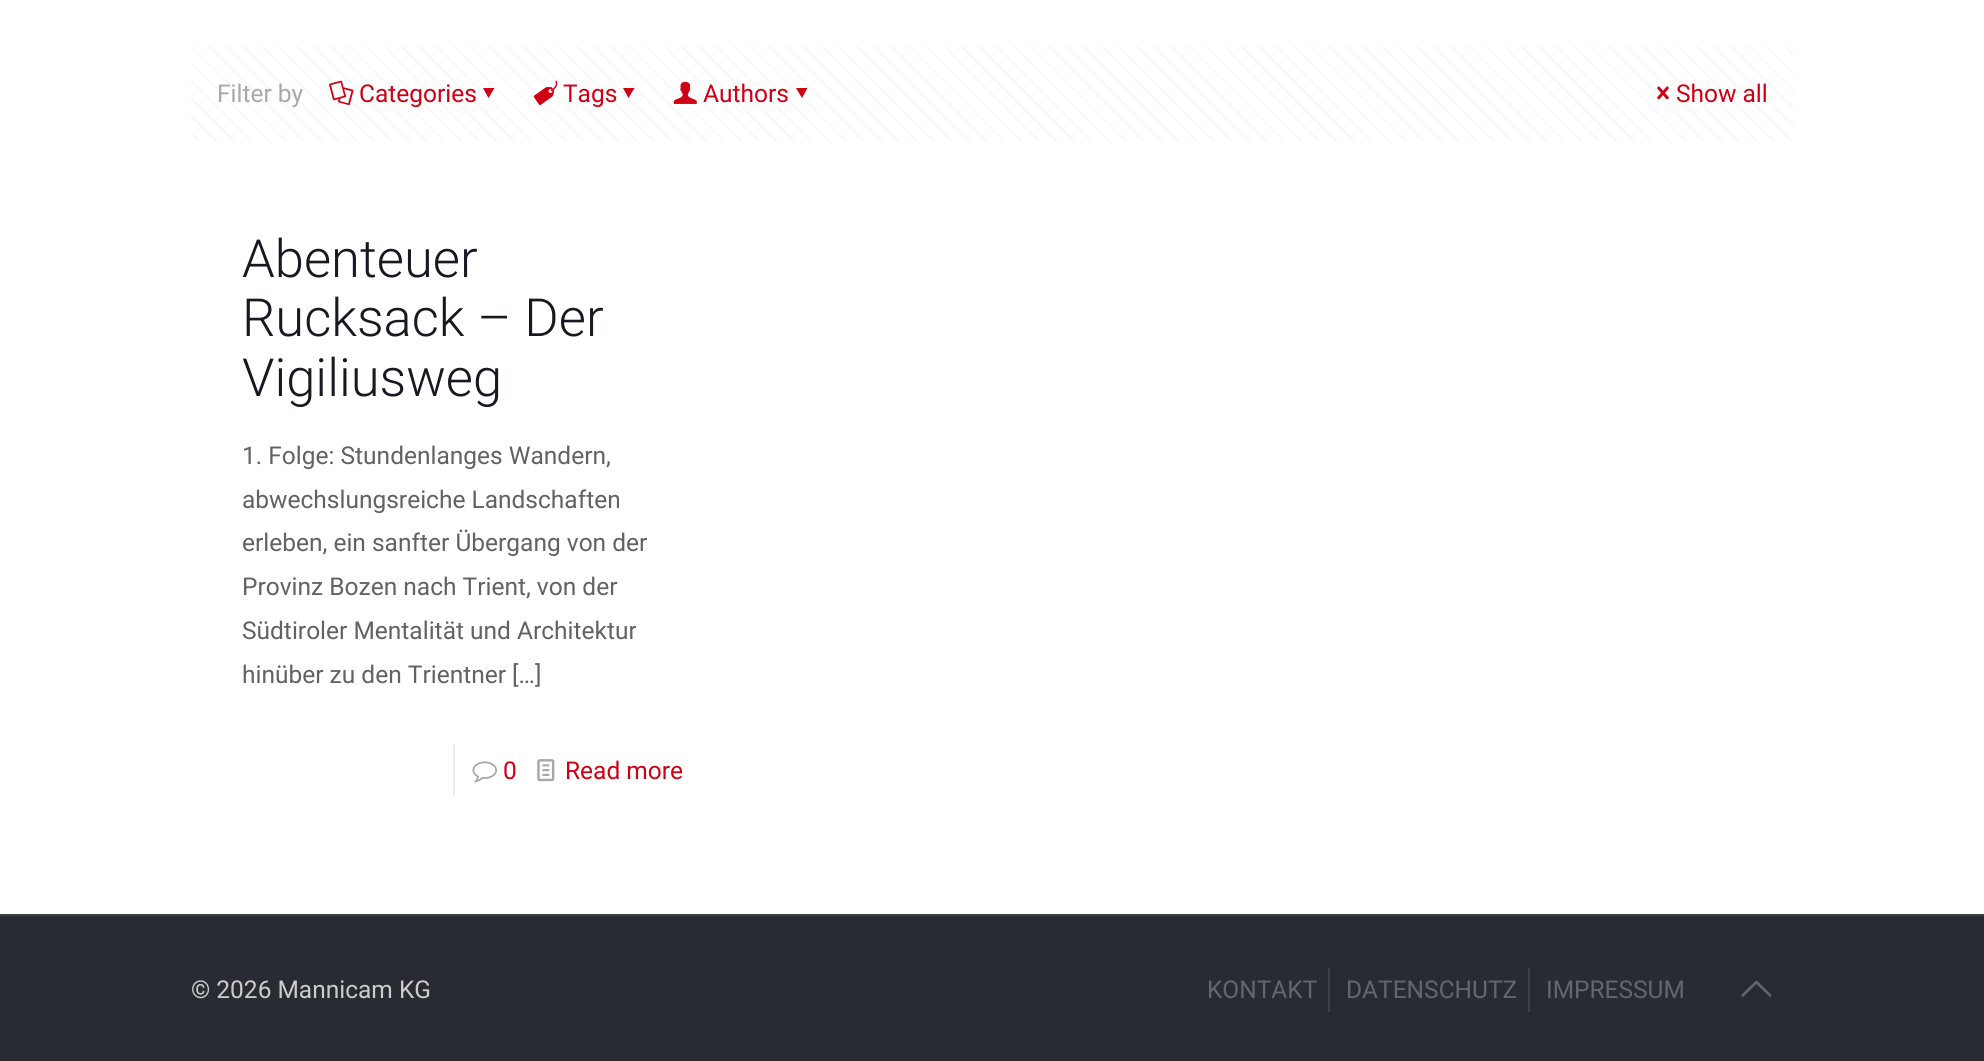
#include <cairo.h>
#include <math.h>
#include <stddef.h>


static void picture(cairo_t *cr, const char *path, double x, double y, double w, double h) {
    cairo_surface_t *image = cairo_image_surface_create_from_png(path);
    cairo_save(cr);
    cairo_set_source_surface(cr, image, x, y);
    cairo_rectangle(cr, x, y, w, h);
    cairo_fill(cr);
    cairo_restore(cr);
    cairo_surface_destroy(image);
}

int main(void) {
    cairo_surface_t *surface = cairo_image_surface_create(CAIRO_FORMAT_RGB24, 1984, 1061);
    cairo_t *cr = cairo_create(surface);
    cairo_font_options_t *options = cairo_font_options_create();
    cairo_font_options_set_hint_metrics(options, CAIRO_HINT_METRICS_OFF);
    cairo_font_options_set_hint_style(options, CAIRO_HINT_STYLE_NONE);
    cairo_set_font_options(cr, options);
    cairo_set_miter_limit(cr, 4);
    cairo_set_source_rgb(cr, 1, 1, 1);
    cairo_paint(cr);
    picture(cr, "img1.png", 191, 46, 1603, 96);
    cairo_select_font_face(cr, "Roboto", CAIRO_FONT_SLANT_NORMAL, CAIRO_FONT_WEIGHT_NORMAL);
    cairo_set_font_size(cr, 24.5);
    cairo_set_source_rgb(cr, 0.659, 0.659, 0.659);
    cairo_move_to(cr, 217, 102);
    cairo_show_text(cr, "Filter by");
    picture(cr, "img2.png", 329, 80, 25, 26);
    cairo_set_source_rgb(cr, 0.812, 0, 0.075);
    cairo_move_to(cr, 359, 102);
    cairo_show_text(cr, "Categories");
    cairo_new_path(cr);
    cairo_move_to(cr, 494.5, 88);
    cairo_line_to(cr, 488.5, 98);
    cairo_line_to(cr, 483, 88);
    cairo_close_path(cr);
    cairo_fill(cr);
    picture(cr, "img3.png", 533, 80, 25, 26);
    cairo_move_to(cr, 563, 102);
    cairo_show_text(cr, "Tags");
    cairo_new_path(cr);
    cairo_move_to(cr, 634.5, 88);
    cairo_line_to(cr, 628.5, 98);
    cairo_line_to(cr, 623, 88);
    cairo_close_path(cr);
    cairo_fill(cr);
    picture(cr, "img4.png", 673, 81, 24, 23);
    cairo_move_to(cr, 703, 102);
    cairo_show_text(cr, "Authors");
    cairo_new_path(cr);
    cairo_move_to(cr, 807.5, 88);
    cairo_line_to(cr, 802, 98);
    cairo_line_to(cr, 796, 88);
    cairo_close_path(cr);
    cairo_fill(cr);
    picture(cr, "img5.png", 1657, 86, 12, 14);
    cairo_move_to(cr, 1676, 102);
    cairo_show_text(cr, "Show all");
    cairo_select_font_face(cr, "Roboto Light", CAIRO_FONT_SLANT_NORMAL, CAIRO_FONT_WEIGHT_NORMAL);
    cairo_set_font_size(cr, 52.5);
    cairo_set_source_rgb(cr, 0.086, 0.098, 0.133);
    cairo_move_to(cr, 242, 277);
    cairo_show_text(cr, "Abenteuer");
    cairo_move_to(cr, 242, 336);
    cairo_show_text(cr, "Rucksack – Der");
    cairo_move_to(cr, 242, 396);
    cairo_show_text(cr, "Vigiliusweg");
    cairo_select_font_face(cr, "Roboto", CAIRO_FONT_SLANT_NORMAL, CAIRO_FONT_WEIGHT_NORMAL);
    cairo_set_font_size(cr, 24.5);
    cairo_set_source_rgb(cr, 0.384, 0.384, 0.384);
    cairo_move_to(cr, 242, 464);
    cairo_show_text(cr, "1. Folge: Stundenlanges Wandern,");
    cairo_move_to(cr, 242, 508);
    cairo_show_text(cr, "abwechslungsreiche Landschaften");
    cairo_move_to(cr, 242, 551);
    cairo_show_text(cr, "erleben, ein sanfter Übergang von der");
    cairo_move_to(cr, 242, 595);
    cairo_show_text(cr, "Provinz Bozen nach Trient, von der");
    cairo_move_to(cr, 242, 639);
    cairo_show_text(cr, "Südtiroler Mentalität und Architektur");
    cairo_move_to(cr, 242, 683);
    cairo_show_text(cr, "hinüber zu den Trientner […]");
    cairo_set_source_rgb(cr, 0.922, 0.922, 0.922);
    cairo_rectangle(cr, 453, 744, 2, 52);
    cairo_fill(cr);
    picture(cr, "img6.png", 472, 761, 25, 22);
    cairo_set_source_rgb(cr, 0.812, 0, 0.075);
    cairo_move_to(cr, 503, 779);
    cairo_show_text(cr, "0");
    picture(cr, "img7.png", 537, 759, 18, 23);
    cairo_move_to(cr, 565, 779);
    cairo_show_text(cr, "Read more");
    cairo_set_source_rgb(cr, 0.161, 0.169, 0.2);
    cairo_rectangle(cr, 0, 916, 1984, 145);
    cairo_fill(cr);
    cairo_set_source_rgb(cr, 0.243, 0.251, 0.278);
    cairo_rectangle(cr, 0, 914, 1984, 2);
    cairo_fill(cr);
    cairo_set_source_rgb(cr, 0.8, 0.8, 0.8);
    cairo_move_to(cr, 191, 998);
    cairo_show_text(cr, "© 2026 Mannicam KG");
    cairo_set_source_rgb(cr, 0.243, 0.251, 0.278);
    cairo_rectangle(cr, 1328, 968, 2, 44);
    cairo_fill(cr);
    cairo_set_source_rgb(cr, 0.396, 0.4, 0.424);
    cairo_move_to(cr, 1207, 998);
    cairo_show_text(cr, "KONTAKT");
    cairo_set_source_rgb(cr, 0.243, 0.251, 0.278);
    cairo_rectangle(cr, 1528, 968, 2, 44);
    cairo_fill(cr);
    cairo_set_source_rgb(cr, 0.396, 0.4, 0.424);
    cairo_move_to(cr, 1346, 998);
    cairo_show_text(cr, "DATENSCHUTZ");
    cairo_move_to(cr, 1546, 998);
    cairo_show_text(cr, "IMPRESSUM");
    picture(cr, "img8.png", 1741, 980, 31, 17);
    cairo_surface_write_to_png(surface, "page.png");
    cairo_font_options_destroy(options);
    cairo_destroy(cr);
    cairo_surface_destroy(surface);
    return 0;
}
